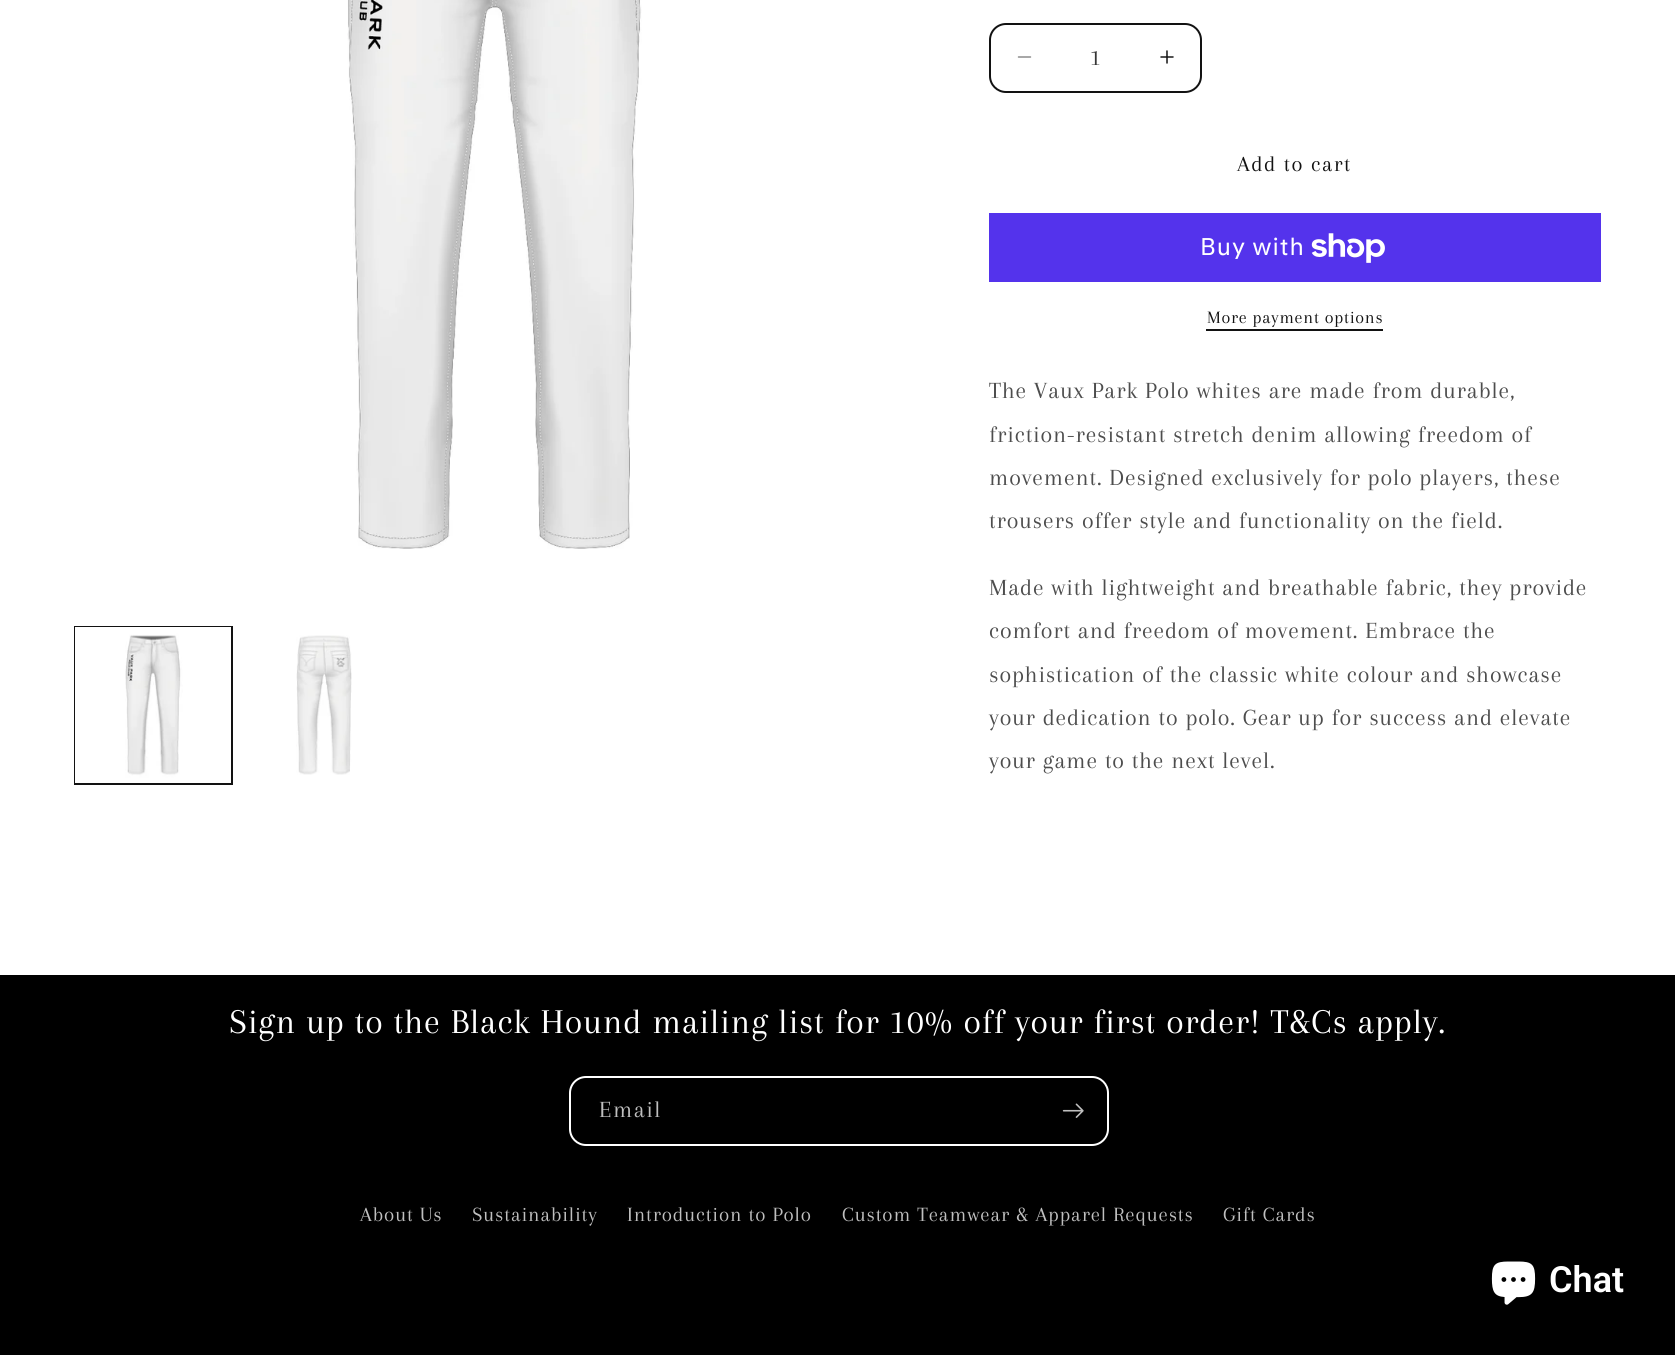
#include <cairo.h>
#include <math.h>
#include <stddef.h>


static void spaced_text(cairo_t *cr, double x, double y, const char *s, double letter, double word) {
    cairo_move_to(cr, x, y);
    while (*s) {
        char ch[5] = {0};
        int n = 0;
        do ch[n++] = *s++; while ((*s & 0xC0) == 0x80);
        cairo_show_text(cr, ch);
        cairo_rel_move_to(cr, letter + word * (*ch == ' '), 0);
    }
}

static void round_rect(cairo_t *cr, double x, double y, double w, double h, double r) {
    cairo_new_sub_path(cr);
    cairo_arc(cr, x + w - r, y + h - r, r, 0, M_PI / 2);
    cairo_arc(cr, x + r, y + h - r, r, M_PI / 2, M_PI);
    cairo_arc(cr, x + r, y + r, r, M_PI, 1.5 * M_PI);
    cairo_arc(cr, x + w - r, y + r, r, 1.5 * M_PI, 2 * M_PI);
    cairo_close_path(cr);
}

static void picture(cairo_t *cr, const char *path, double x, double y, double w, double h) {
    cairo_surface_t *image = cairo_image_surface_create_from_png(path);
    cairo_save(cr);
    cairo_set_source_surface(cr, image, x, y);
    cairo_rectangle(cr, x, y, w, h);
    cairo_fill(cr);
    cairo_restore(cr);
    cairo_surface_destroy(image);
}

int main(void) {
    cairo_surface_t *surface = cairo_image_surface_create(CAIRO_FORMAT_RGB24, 1675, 1355);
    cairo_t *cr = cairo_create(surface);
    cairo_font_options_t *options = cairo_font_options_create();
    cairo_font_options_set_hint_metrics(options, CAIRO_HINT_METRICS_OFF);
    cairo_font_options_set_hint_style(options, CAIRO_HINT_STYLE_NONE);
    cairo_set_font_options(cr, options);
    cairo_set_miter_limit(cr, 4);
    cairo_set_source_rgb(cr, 1, 1, 1);
    cairo_paint(cr);
    picture(cr, "img1.png", 347, 0, 295, 549);
    cairo_rectangle(cr, 75, 627, 157, 157);
    cairo_set_source_rgb(cr, 0.071, 0.071, 0.071);
    cairo_stroke(cr);
    picture(cr, "img2.png", 75, 627, 156, 156);
    picture(cr, "img3.png", 296, 635, 56, 140);
    picture(cr, "img4.png", 1017, 56, 15, 2);
    picture(cr, "img5.png", 1160, 50, 14, 14);
    round_rect(cr, 990, 24, 211, 68, 16);
    cairo_stroke(cr);
    cairo_select_font_face(cr, "Arapey", CAIRO_FONT_SLANT_NORMAL, CAIRO_FONT_WEIGHT_NORMAL);
    cairo_set_font_size(cr, 24);
    cairo_set_source_rgb(cr, 0.212, 0.212, 0.212);
    cairo_move_to(cr, 1090, 65);
    cairo_show_text(cr, "1");
    cairo_set_font_size(cr, 22.5);
    cairo_set_source_rgb(cr, 0.071, 0.071, 0.071);
    spaced_text(cr, 1237, 171, "Add to cart", 1.5, 0);
    cairo_set_source_rgb(cr, 0.329, 0.2, 0.922);
    cairo_rectangle(cr, 989, 213, 612, 69);
    cairo_fill(cr);
    cairo_select_font_face(cr, "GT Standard", CAIRO_FONT_SLANT_NORMAL, CAIRO_FONT_WEIGHT_NORMAL);
    cairo_set_font_size(cr, 24);
    cairo_set_source_rgb(cr, 1, 1, 1);
    spaced_text(cr, 1200, 255, "Buy with", 0.9, 0);
    picture(cr, "img6.png", 1311, 233, 74, 30);
    cairo_select_font_face(cr, "Arapey", CAIRO_FONT_SLANT_NORMAL, CAIRO_FONT_WEIGHT_NORMAL);
    cairo_set_font_size(cr, 18);
    cairo_set_source_rgb(cr, 0.071, 0.071, 0.071);
    spaced_text(cr, 1207, 323, "More payment options", 0.75, 0);
    cairo_rectangle(cr, 1206, 329, 177, 2);
    cairo_fill(cr);
    cairo_set_font_size(cr, 24);
    cairo_set_source_rgb(cr, 0.302, 0.302, 0.302);
    spaced_text(cr, 989, 398, "The Vaux Park Polo whites are made from durable,", 0.9, 0);
    spaced_text(cr, 989, 442, "friction-resistant stretch denim allowing freedom of", 0.9, 0);
    spaced_text(cr, 989, 485, "movement. Designed exclusively for polo players, these", 0.9, 0);
    spaced_text(cr, 989, 528, "trousers offer style and functionality on the field.", 0.9, 0);
    spaced_text(cr, 989, 595, "Made with lightweight and breathable fabric, they provide", 0.9, 0);
    spaced_text(cr, 989, 638, "comfort and freedom of movement. Embrace the", 0.9, 0);
    spaced_text(cr, 989, 682, "sophistication of the classic white colour and showcase", 0.9, 0);
    spaced_text(cr, 989, 725, "your dedication to polo. Gear up for success and elevate", 0.9, 0);
    spaced_text(cr, 989, 768, "your game to the next level.", 0.9, 0);
    cairo_set_source_rgb(cr, 0, 0, 0);
    cairo_rectangle(cr, 0, 975, 1675, 380);
    cairo_fill(cr);
    cairo_set_font_size(cr, 36);
    cairo_set_source_rgb(cr, 1, 1, 1);
    spaced_text(cr, 229, 1033, "Sign up to the Black Hound mailing list for 10% off your first order! T&Cs apply.", 0.9, 0);
    round_rect(cr, 570, 1077, 538, 68, 16);
    cairo_stroke(cr);
    cairo_set_font_size(cr, 24);
    cairo_set_source_rgb(cr, 0.749, 0.749, 0.749);
    spaced_text(cr, 599, 1117, "Email", 1.5, 0);
    picture(cr, "img7.png", 1062, 1103, 22, 15);
    cairo_set_font_size(cr, 21);
    spaced_text(cr, 360, 1221, "About Us", 0.9, 0);
    spaced_text(cr, 472, 1221, "Sustainability", 0.9, 0);
    spaced_text(cr, 627, 1221, "Introduction to Polo", 0.9, 0);
    spaced_text(cr, 842, 1221, "Custom Teamwear & Apparel Requests", 0.9, 0);
    spaced_text(cr, 1223, 1221, "Gift Cards", 0.9, 0);
    picture(cr, "img8.png", 1491, 1261, 45, 44);
    cairo_select_font_face(cr, "Roboto SemiBold", CAIRO_FONT_SLANT_NORMAL, CAIRO_FONT_WEIGHT_NORMAL);
    cairo_set_font_size(cr, 36);
    cairo_set_source_rgb(cr, 1, 1, 1);
    cairo_move_to(cr, 1549, 1292);
    cairo_show_text(cr, "Chat");
    cairo_surface_write_to_png(surface, "page.png");
    cairo_font_options_destroy(options);
    cairo_destroy(cr);
    cairo_surface_destroy(surface);
    return 0;
}
